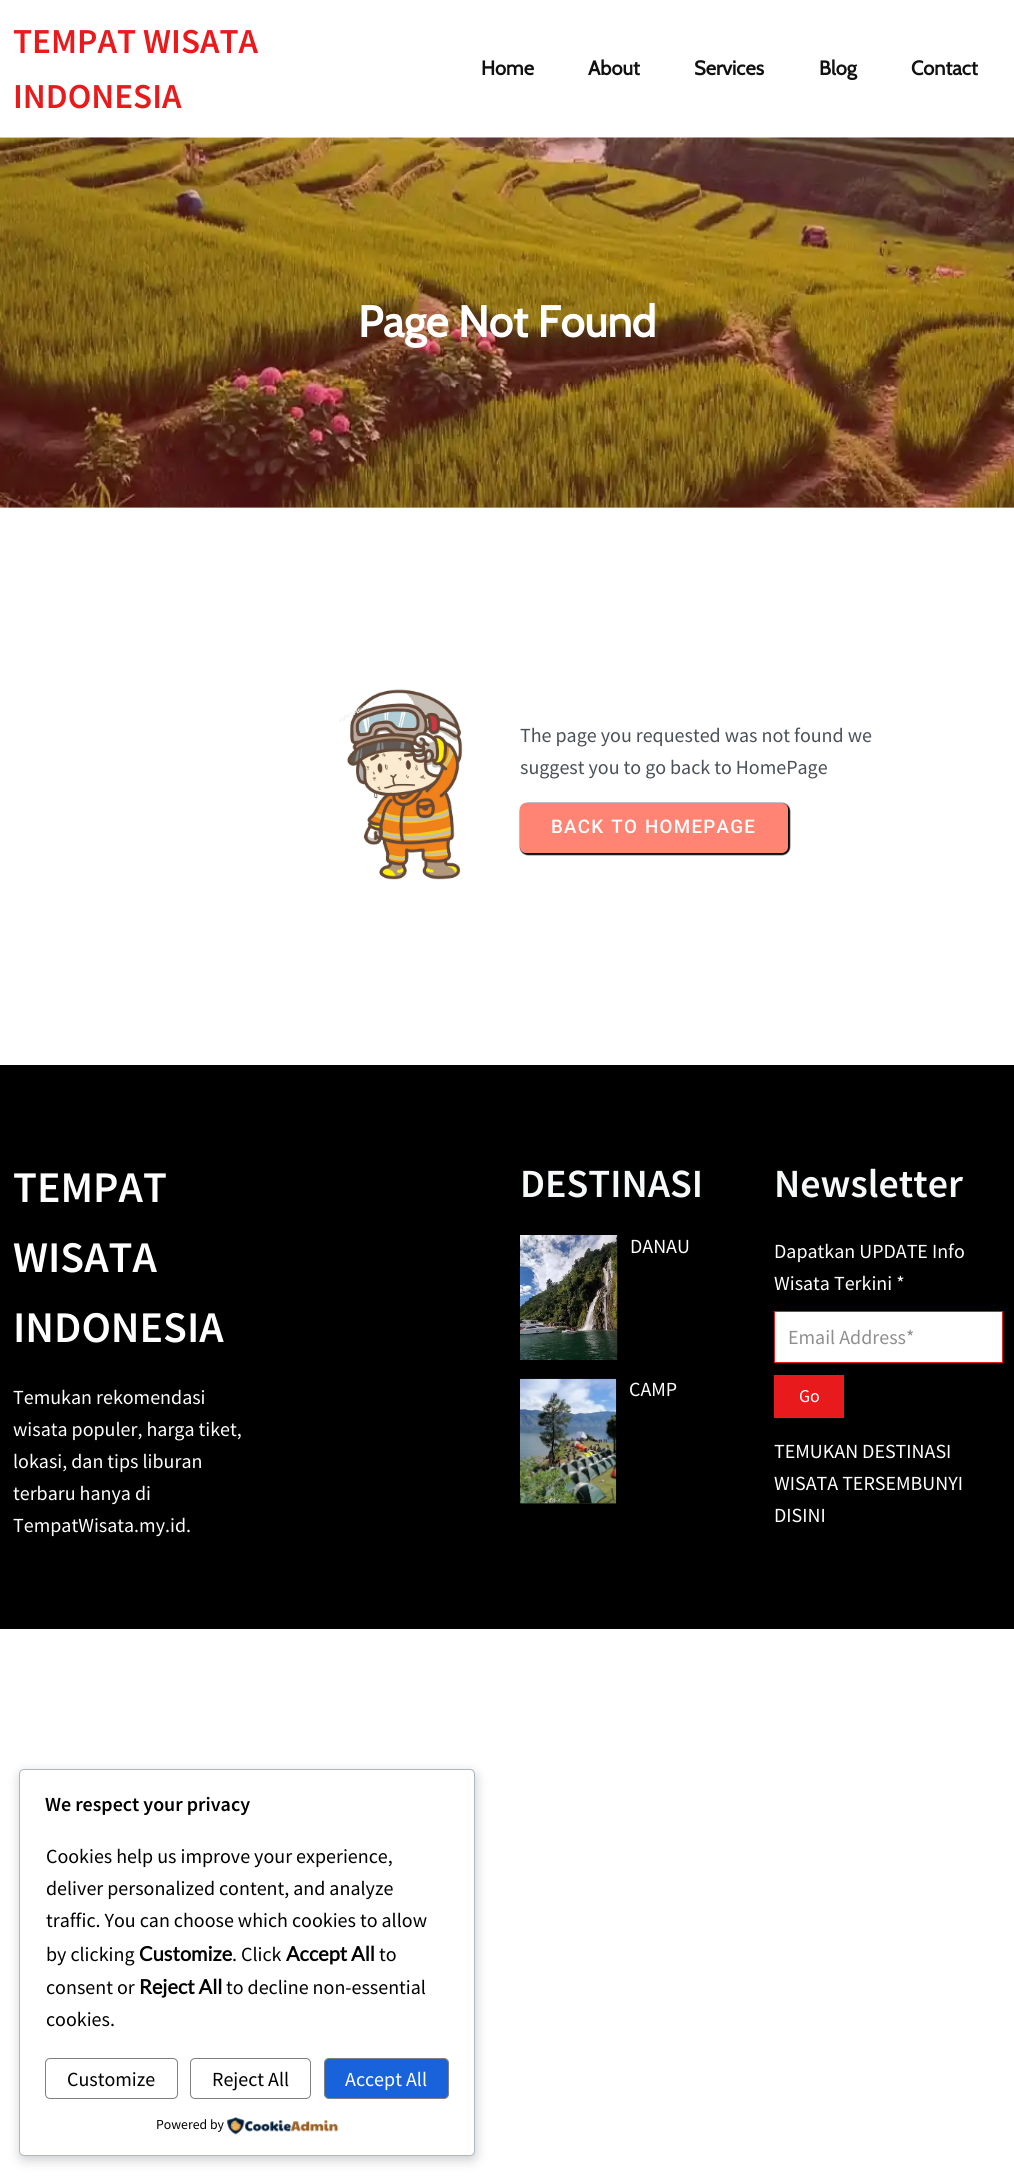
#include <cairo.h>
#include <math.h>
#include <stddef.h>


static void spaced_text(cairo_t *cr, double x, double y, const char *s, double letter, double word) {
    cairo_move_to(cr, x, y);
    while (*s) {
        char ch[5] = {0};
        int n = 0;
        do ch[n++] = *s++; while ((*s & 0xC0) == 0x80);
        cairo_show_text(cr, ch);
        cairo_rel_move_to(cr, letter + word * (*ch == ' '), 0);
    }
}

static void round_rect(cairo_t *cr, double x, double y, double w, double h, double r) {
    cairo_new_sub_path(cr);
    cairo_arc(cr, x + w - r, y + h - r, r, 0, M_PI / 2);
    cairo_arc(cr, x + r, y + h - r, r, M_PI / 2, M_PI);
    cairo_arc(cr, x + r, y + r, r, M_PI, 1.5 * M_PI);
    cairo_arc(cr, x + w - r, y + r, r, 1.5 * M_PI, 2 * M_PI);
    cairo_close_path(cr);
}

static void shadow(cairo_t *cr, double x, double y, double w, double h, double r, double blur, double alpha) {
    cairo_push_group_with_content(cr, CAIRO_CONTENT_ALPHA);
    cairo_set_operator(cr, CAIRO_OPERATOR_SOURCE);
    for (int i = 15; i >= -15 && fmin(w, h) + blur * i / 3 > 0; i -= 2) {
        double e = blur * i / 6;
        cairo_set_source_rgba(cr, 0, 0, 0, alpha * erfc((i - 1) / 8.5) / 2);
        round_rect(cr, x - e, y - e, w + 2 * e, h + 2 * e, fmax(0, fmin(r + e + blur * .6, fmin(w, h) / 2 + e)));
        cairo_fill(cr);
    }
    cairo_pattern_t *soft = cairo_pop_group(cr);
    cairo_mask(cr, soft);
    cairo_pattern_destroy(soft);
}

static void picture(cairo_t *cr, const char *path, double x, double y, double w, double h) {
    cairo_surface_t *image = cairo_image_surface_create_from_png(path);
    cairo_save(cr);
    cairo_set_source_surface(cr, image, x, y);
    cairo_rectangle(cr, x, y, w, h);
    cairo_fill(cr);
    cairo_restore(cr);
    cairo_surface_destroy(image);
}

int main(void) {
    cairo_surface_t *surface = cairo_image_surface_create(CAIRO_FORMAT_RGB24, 1014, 2181);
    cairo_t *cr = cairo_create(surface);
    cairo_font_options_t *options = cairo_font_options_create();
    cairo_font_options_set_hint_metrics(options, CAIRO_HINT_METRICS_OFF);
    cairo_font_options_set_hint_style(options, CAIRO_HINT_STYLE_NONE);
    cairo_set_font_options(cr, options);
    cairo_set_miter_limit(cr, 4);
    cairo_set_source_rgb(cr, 1, 1, 1);
    cairo_paint(cr);
    cairo_set_source_rgb(cr, 0.973, 0.729, 0.733);
    cairo_rectangle(cr, 0, 507, 1014, 1);
    cairo_fill(cr);
    cairo_select_font_face(cr, "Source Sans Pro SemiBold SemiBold", CAIRO_FONT_SLANT_NORMAL, CAIRO_FONT_WEIGHT_NORMAL);
    cairo_set_font_size(cr, 35);
    cairo_set_source_rgb(cr, 0.91, 0.102, 0.11);
    cairo_move_to(cr, 13, 53);
    cairo_show_text(cr, "TEMPAT WISATA");
    cairo_move_to(cr, 13, 108);
    cairo_show_text(cr, "INDONESIA");
    cairo_select_font_face(cr, "Cabin", CAIRO_FONT_SLANT_NORMAL, CAIRO_FONT_WEIGHT_BOLD);
    cairo_set_font_size(cr, 20);
    cairo_set_source_rgb(cr, 0.067, 0.067, 0.067);
    cairo_move_to(cr, 481, 75);
    cairo_show_text(cr, "Home");
    cairo_move_to(cr, 588, 75);
    cairo_show_text(cr, "About");
    cairo_move_to(cr, 694, 75);
    cairo_show_text(cr, "Services");
    cairo_move_to(cr, 819, 75);
    cairo_show_text(cr, "Blog");
    cairo_move_to(cr, 911, 75);
    cairo_show_text(cr, "Contact");
    picture(cr, "img1.png", 0, 137, 1014, 371);
    cairo_set_font_size(cr, 43.75);
    cairo_set_source_rgb(cr, 1, 1, 1);
    cairo_move_to(cr, 358, 337);
    cairo_show_text(cr, "Page Not Found");
    picture(cr, "img2.png", 339, 689, 124, 191);
    cairo_select_font_face(cr, "Source Sans Pro", CAIRO_FONT_SLANT_NORMAL, CAIRO_FONT_WEIGHT_NORMAL);
    cairo_set_font_size(cr, 20);
    cairo_set_source_rgb(cr, 0.286, 0.314, 0.341);
    cairo_move_to(cr, 520, 742);
    cairo_show_text(cr, "The page you requested was not found we");
    cairo_move_to(cr, 520, 774);
    cairo_show_text(cr, "suggest you to go back to HomePage");
    cairo_set_source_rgb(cr, 0, 0, 0);
    shadow(cr, 520, 803, 270, 52, 8, 0.5, 1);
    cairo_set_source_rgb(cr, 1, 0.518, 0.455);
    round_rect(cr, 520, 803, 268, 50, 6);
    cairo_fill(cr);
    cairo_select_font_face(cr, "Roboto Medium", CAIRO_FONT_SLANT_NORMAL, CAIRO_FONT_WEIGHT_NORMAL);
    cairo_set_font_size(cr, 18.75);
    cairo_set_source_rgb(cr, 1, 1, 1);
    spaced_text(cr, 551, 833, "BACK TO HOMEPAGE", 1.25, 1);
    cairo_set_source_rgb(cr, 0, 0, 0);
    cairo_rectangle(cr, 0, 1065, 1014, 564);
    cairo_fill(cr);
    cairo_select_font_face(cr, "Source Sans Pro SemiBold SemiBold", CAIRO_FONT_SLANT_NORMAL, CAIRO_FONT_WEIGHT_NORMAL);
    cairo_set_font_size(cr, 43.75);
    cairo_set_source_rgb(cr, 1, 1, 1);
    cairo_move_to(cr, 13, 1202);
    cairo_show_text(cr, "TEMPAT");
    cairo_move_to(cr, 13, 1272);
    cairo_show_text(cr, "WISATA");
    cairo_move_to(cr, 13, 1342);
    cairo_show_text(cr, "INDONESIA");
    cairo_select_font_face(cr, "Source Sans Pro", CAIRO_FONT_SLANT_NORMAL, CAIRO_FONT_WEIGHT_NORMAL);
    cairo_set_font_size(cr, 20);
    cairo_move_to(cr, 13, 1404);
    cairo_show_text(cr, "Temukan rekomendasi");
    cairo_move_to(cr, 13, 1436);
    cairo_show_text(cr, "wisata populer, harga tiket,");
    cairo_move_to(cr, 13, 1468);
    cairo_show_text(cr, "lokasi, dan tips liburan");
    cairo_move_to(cr, 13, 1500);
    cairo_show_text(cr, "terbaru hanya di");
    cairo_move_to(cr, 13, 1532);
    cairo_show_text(cr, "TempatWisata.my.id.");
    cairo_select_font_face(cr, "Source Sans Pro SemiBold SemiBold", CAIRO_FONT_SLANT_NORMAL, CAIRO_FONT_WEIGHT_NORMAL);
    cairo_set_font_size(cr, 40);
    cairo_set_source_rgb(cr, 0.961, 0.976, 0.98);
    cairo_move_to(cr, 520, 1197);
    cairo_show_text(cr, "DESTINASI");
    picture(cr, "img3.png", 520, 1235, 98, 125);
    cairo_select_font_face(cr, "Source Sans Pro", CAIRO_FONT_SLANT_NORMAL, CAIRO_FONT_WEIGHT_NORMAL);
    cairo_set_font_size(cr, 20);
    cairo_set_source_rgb(cr, 1, 1, 1);
    cairo_move_to(cr, 630, 1253);
    cairo_show_text(cr, "DANAU");
    picture(cr, "img4.png", 520, 1378, 97, 126);
    cairo_move_to(cr, 629, 1396);
    cairo_show_text(cr, "CAMP");
    cairo_select_font_face(cr, "Source Sans Pro SemiBold SemiBold", CAIRO_FONT_SLANT_NORMAL, CAIRO_FONT_WEIGHT_NORMAL);
    cairo_set_font_size(cr, 40);
    cairo_set_source_rgb(cr, 0.961, 0.976, 0.98);
    cairo_move_to(cr, 774, 1197);
    cairo_show_text(cr, "Newsletter");
    cairo_select_font_face(cr, "Source Sans Pro", CAIRO_FONT_SLANT_NORMAL, CAIRO_FONT_WEIGHT_NORMAL);
    cairo_set_font_size(cr, 20);
    cairo_set_source_rgb(cr, 1, 1, 1);
    cairo_move_to(cr, 774, 1258);
    cairo_show_text(cr, "Dapatkan UPDATE Info");
    cairo_move_to(cr, 774, 1290);
    cairo_show_text(cr, "Wisata Terkini *");
    cairo_rectangle(cr, 774.5, 1311.5, 228, 51);
    cairo_fill_preserve(cr);
    cairo_set_source_rgb(cr, 0.91, 0.102, 0.11);
    cairo_set_line_width(cr, 1);
    cairo_stroke(cr);
    cairo_set_source_rgb(cr, 0.561, 0.561, 0.561);
    cairo_move_to(cr, 788, 1344);
    cairo_show_text(cr, "Email Address*");
    cairo_set_source_rgb(cr, 0.91, 0.102, 0.11);
    cairo_rectangle(cr, 774, 1375, 70, 43);
    cairo_fill(cr);
    cairo_set_font_size(cr, 18);
    cairo_set_source_rgb(cr, 1, 1, 1);
    cairo_move_to(cr, 799, 1402);
    cairo_show_text(cr, "Go");
    cairo_set_font_size(cr, 20);
    cairo_move_to(cr, 774, 1458);
    cairo_show_text(cr, "TEMUKAN DESTINASI");
    cairo_move_to(cr, 774, 1490);
    cairo_show_text(cr, "WISATA TERSEMBUNYI");
    cairo_move_to(cr, 774, 1522);
    cairo_show_text(cr, "DISINI");
    cairo_set_source_rgb(cr, 0, 0, 0);
    shadow(cr, 20, 1773, 456, 387, 5, 6, 0.2);
    cairo_set_source_rgb(cr, 1, 1, 1);
    round_rect(cr, 19.5, 1769.5, 455, 386, 4.5);
    cairo_fill_preserve(cr);
    cairo_set_source_rgb(cr, 0.671, 0.722, 0.765);
    cairo_stroke(cr);
    cairo_select_font_face(cr, "Source Sans Pro SemiBold SemiBold", CAIRO_FONT_SLANT_NORMAL, CAIRO_FONT_WEIGHT_NORMAL);
    cairo_set_source_rgb(cr, 0, 0, 0);
    cairo_move_to(cr, 45, 1811);
    cairo_show_text(cr, "We respect your privacy");
    cairo_select_font_face(cr, "Source Sans Pro", CAIRO_FONT_SLANT_NORMAL, CAIRO_FONT_WEIGHT_NORMAL);
    cairo_move_to(cr, 46, 1863);
    cairo_show_text(cr, "Cookies help us improve your experience,");
    cairo_move_to(cr, 46, 1895);
    cairo_show_text(cr, "deliver personalized content, and analyze");
    cairo_move_to(cr, 46, 1927);
    cairo_show_text(cr, "traffic. You can choose which cookies to allow");
    cairo_move_to(cr, 46, 1961);
    cairo_show_text(cr, "by clicking");
    cairo_select_font_face(cr, "Lato", CAIRO_FONT_SLANT_NORMAL, CAIRO_FONT_WEIGHT_BOLD);
    cairo_move_to(cr, 139, 1961);
    cairo_show_text(cr, "Customize");
    cairo_select_font_face(cr, "Source Sans Pro", CAIRO_FONT_SLANT_NORMAL, CAIRO_FONT_WEIGHT_NORMAL);
    cairo_move_to(cr, 232, 1961);
    cairo_show_text(cr, ". Click");
    cairo_select_font_face(cr, "Lato", CAIRO_FONT_SLANT_NORMAL, CAIRO_FONT_WEIGHT_BOLD);
    cairo_move_to(cr, 286, 1961);
    cairo_show_text(cr, "Accept All");
    cairo_select_font_face(cr, "Source Sans Pro", CAIRO_FONT_SLANT_NORMAL, CAIRO_FONT_WEIGHT_NORMAL);
    cairo_move_to(cr, 379, 1961);
    cairo_show_text(cr, "to");
    cairo_move_to(cr, 46, 1994);
    cairo_show_text(cr, "consent or");
    cairo_select_font_face(cr, "Lato", CAIRO_FONT_SLANT_NORMAL, CAIRO_FONT_WEIGHT_BOLD);
    cairo_move_to(cr, 139, 1994);
    cairo_show_text(cr, "Reject All");
    cairo_select_font_face(cr, "Source Sans Pro", CAIRO_FONT_SLANT_NORMAL, CAIRO_FONT_WEIGHT_NORMAL);
    cairo_move_to(cr, 226, 1994);
    cairo_show_text(cr, "to decline non-essential");
    cairo_move_to(cr, 46, 2026);
    cairo_show_text(cr, "cookies.");
    round_rect(cr, 45.5, 2058.5, 132, 40, 4.5);
    cairo_set_source_rgb(cr, 0.502, 0.502, 0.502);
    cairo_stroke(cr);
    cairo_set_source_rgb(cr, 0, 0, 0);
    cairo_move_to(cr, 67, 2086);
    cairo_show_text(cr, "Customize");
    round_rect(cr, 190.5, 2058.5, 120, 40, 4.5);
    cairo_set_source_rgb(cr, 0.502, 0.502, 0.502);
    cairo_stroke(cr);
    cairo_set_source_rgb(cr, 0, 0, 0);
    cairo_move_to(cr, 212, 2086);
    cairo_show_text(cr, "Reject All");
    cairo_set_source_rgb(cr, 0.094, 0.388, 0.863);
    round_rect(cr, 324.5, 2058.5, 124, 40, 4.5);
    cairo_fill_preserve(cr);
    cairo_set_source_rgb(cr, 0.502, 0.502, 0.502);
    cairo_stroke(cr);
    cairo_set_source_rgb(cr, 1, 1, 1);
    cairo_move_to(cr, 345, 2086);
    cairo_show_text(cr, "Accept All");
    cairo_set_font_size(cr, 13.75);
    cairo_set_source_rgb(cr, 0, 0, 0);
    cairo_move_to(cr, 156, 2129);
    cairo_show_text(cr, "Powered by");
    picture(cr, "img5.png", 227, 2117, 112, 18);
    cairo_surface_write_to_png(surface, "page.png");
    cairo_font_options_destroy(options);
    cairo_destroy(cr);
    cairo_surface_destroy(surface);
    return 0;
}
